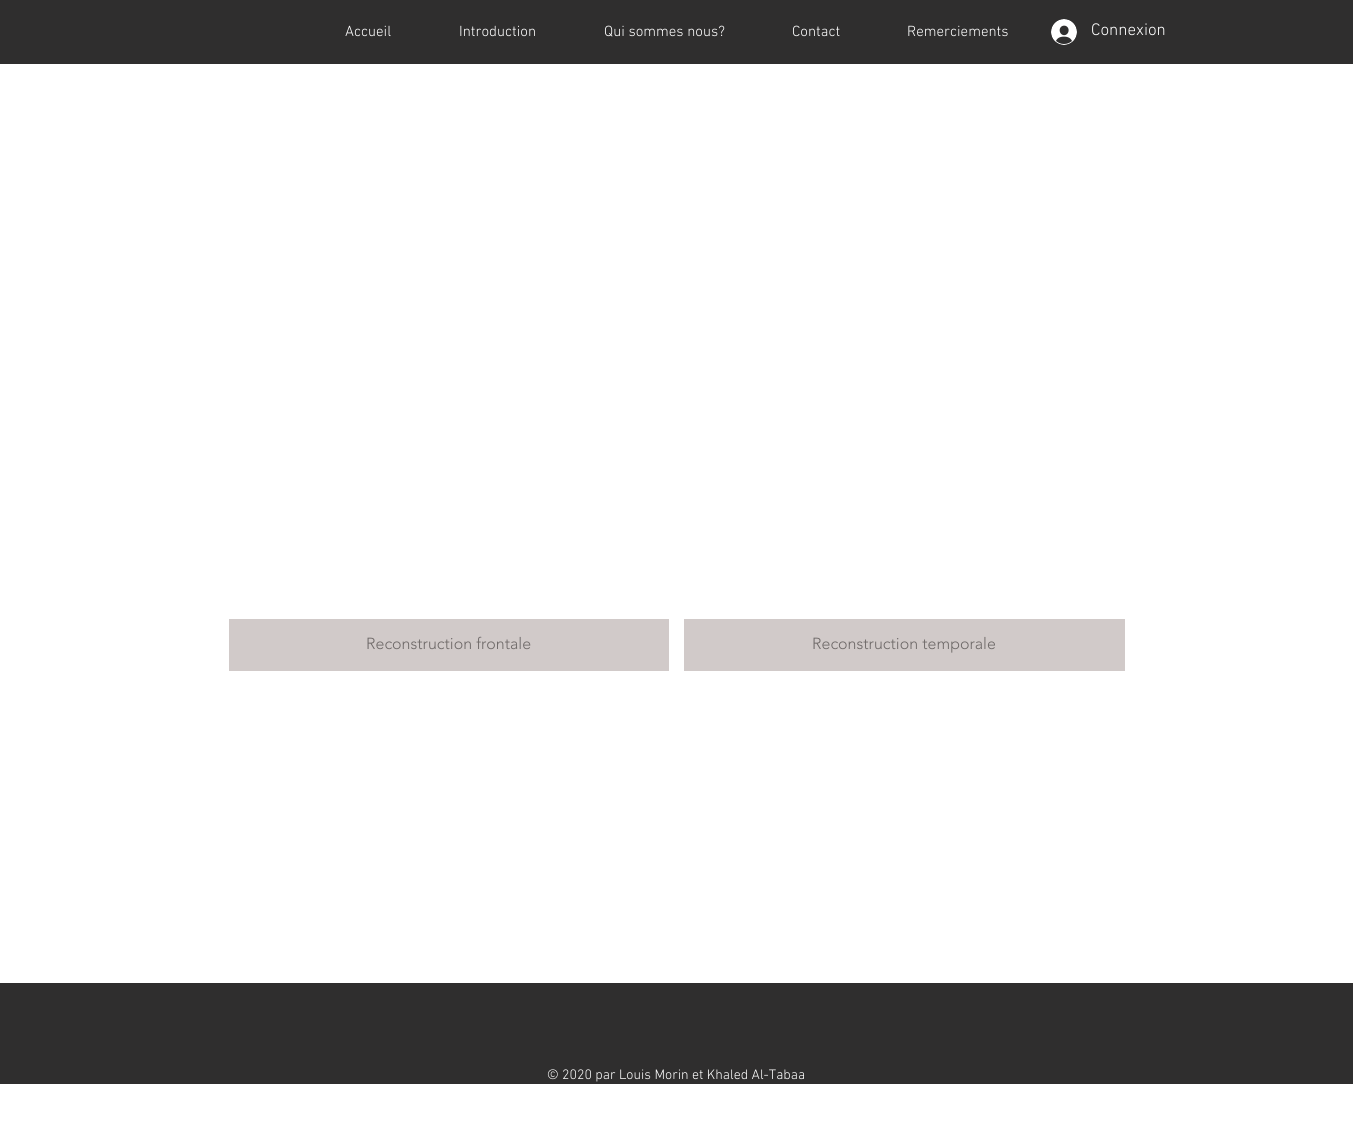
#include <cairo.h>
#include <math.h>
#include <stddef.h>


static void picture(cairo_t *cr, const char *path, double x, double y, double w, double h) {
    cairo_surface_t *image = cairo_image_surface_create_from_png(path);
    cairo_save(cr);
    cairo_set_source_surface(cr, image, x, y);
    cairo_rectangle(cr, x, y, w, h);
    cairo_fill(cr);
    cairo_restore(cr);
    cairo_surface_destroy(image);
}

int main(void) {
    cairo_surface_t *surface = cairo_image_surface_create(CAIRO_FORMAT_RGB24, 1353, 1141);
    cairo_t *cr = cairo_create(surface);
    cairo_font_options_t *options = cairo_font_options_create();
    cairo_font_options_set_hint_metrics(options, CAIRO_HINT_METRICS_OFF);
    cairo_font_options_set_hint_style(options, CAIRO_HINT_STYLE_NONE);
    cairo_set_font_options(cr, options);
    cairo_set_miter_limit(cr, 4);
    cairo_set_source_rgb(cr, 1, 1, 1);
    cairo_paint(cr);
    cairo_set_source_rgb(cr, 0.184, 0.18, 0.18);
    cairo_rectangle(cr, 0, 0, 1353, 64);
    cairo_fill(cr);
    cairo_select_font_face(cr, "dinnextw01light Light", CAIRO_FONT_SLANT_NORMAL, CAIRO_FONT_WEIGHT_NORMAL);
    cairo_set_font_size(cr, 15);
    cairo_set_source_rgb(cr, 1, 1, 1);
    cairo_move_to(cr, 345, 36);
    cairo_show_text(cr, "Accueil");
    cairo_move_to(cr, 459, 36);
    cairo_show_text(cr, "Introduction");
    cairo_move_to(cr, 604, 36);
    cairo_show_text(cr, "Qui sommes nous?");
    cairo_move_to(cr, 792, 36);
    cairo_show_text(cr, "Contact");
    cairo_move_to(cr, 907, 36);
    cairo_show_text(cr, "Remerciements");
    picture(cr, "img1.png", 1051, 19, 26, 26);
    cairo_set_font_size(cr, 17);
    cairo_move_to(cr, 1091, 35);
    cairo_show_text(cr, "Connexion");
    cairo_set_source_rgb(cr, 0.82, 0.792, 0.788);
    cairo_rectangle(cr, 229, 619, 440, 52);
    cairo_fill(cr);
    cairo_select_font_face(cr, "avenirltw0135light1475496 Light", CAIRO_FONT_SLANT_NORMAL, CAIRO_FONT_WEIGHT_NORMAL);
    cairo_set_font_size(cr, 16);
    cairo_set_source_rgb(cr, 0.431, 0.412, 0.408);
    cairo_move_to(cr, 366, 649);
    cairo_show_text(cr, "Reconstruction frontale");
    cairo_set_source_rgb(cr, 0.82, 0.792, 0.788);
    cairo_rectangle(cr, 684, 619, 441, 52);
    cairo_fill(cr);
    cairo_set_source_rgb(cr, 0.431, 0.412, 0.408);
    cairo_move_to(cr, 812, 649);
    cairo_show_text(cr, "Reconstruction temporale");
    cairo_set_source_rgb(cr, 0.184, 0.18, 0.18);
    cairo_rectangle(cr, 0, 983, 1353, 101);
    cairo_fill(cr);
    cairo_select_font_face(cr, "dinnextw01light Light", CAIRO_FONT_SLANT_NORMAL, CAIRO_FONT_WEIGHT_NORMAL);
    cairo_set_font_size(cr, 14);
    cairo_set_source_rgb(cr, 1, 1, 1);
    cairo_move_to(cr, 547, 1079);
    cairo_show_text(cr, "© 2020 par Louis Morin et Khaled Al-Tabaa");
    cairo_surface_write_to_png(surface, "page.png");
    cairo_font_options_destroy(options);
    cairo_destroy(cr);
    cairo_surface_destroy(surface);
    return 0;
}
